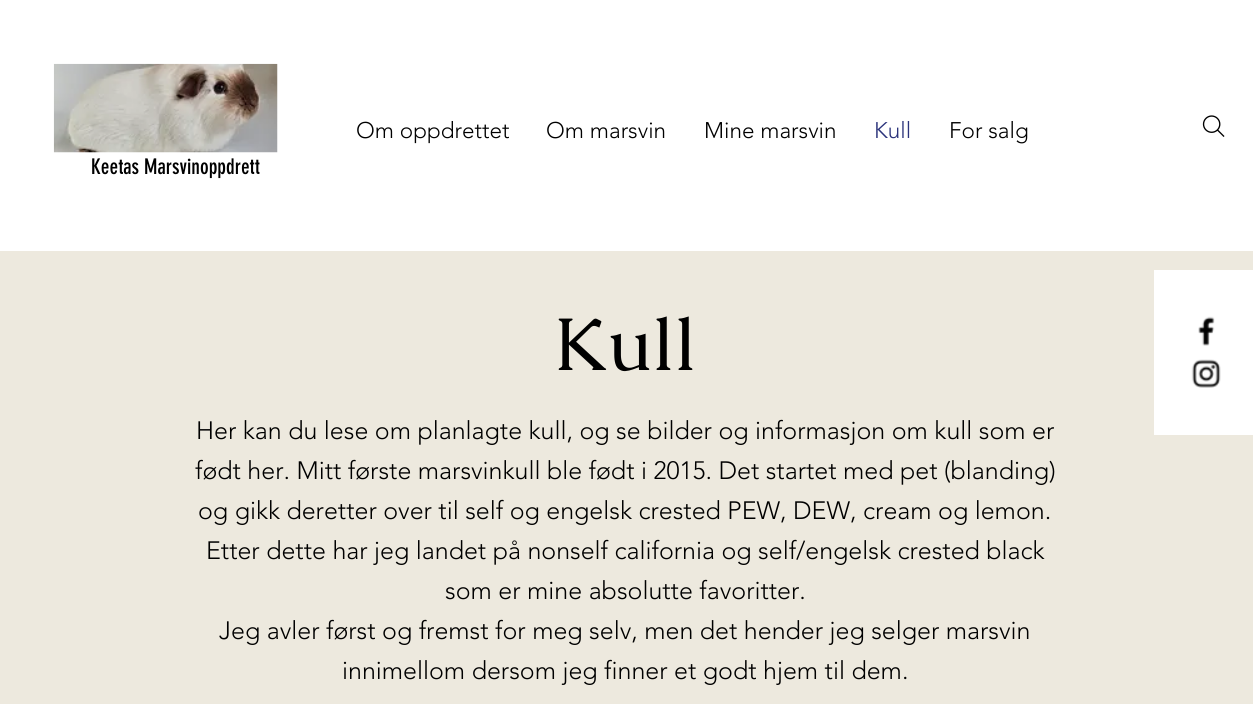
#include <cairo.h>
#include <math.h>
#include <stddef.h>


static void picture(cairo_t *cr, const char *path, double x, double y, double w, double h) {
    cairo_surface_t *image = cairo_image_surface_create_from_png(path);
    cairo_save(cr);
    cairo_set_source_surface(cr, image, x, y);
    cairo_rectangle(cr, x, y, w, h);
    cairo_fill(cr);
    cairo_restore(cr);
    cairo_surface_destroy(image);
}

int main(void) {
    cairo_surface_t *surface = cairo_image_surface_create(CAIRO_FORMAT_RGB24, 1253, 704);
    cairo_t *cr = cairo_create(surface);
    cairo_font_options_t *options = cairo_font_options_create();
    cairo_font_options_set_hint_metrics(options, CAIRO_HINT_METRICS_OFF);
    cairo_font_options_set_hint_style(options, CAIRO_HINT_STYLE_NONE);
    cairo_set_font_options(cr, options);
    cairo_set_miter_limit(cr, 4);
    cairo_set_source_rgb(cr, 1, 1, 1);
    cairo_paint(cr);
    cairo_select_font_face(cr, "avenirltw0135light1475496 Light", CAIRO_FONT_SLANT_NORMAL, CAIRO_FONT_WEIGHT_NORMAL);
    cairo_set_font_size(cr, 22.5);
    cairo_set_source_rgb(cr, 0, 0, 0);
    cairo_move_to(cr, 356, 138);
    cairo_show_text(cr, "Om oppdrettet");
    cairo_move_to(cr, 546, 138);
    cairo_show_text(cr, "Om marsvin");
    cairo_move_to(cr, 704, 138);
    cairo_show_text(cr, "Mine marsvin");
    cairo_set_source_rgb(cr, 0.169, 0.2, 0.482);
    cairo_move_to(cr, 874, 138);
    cairo_show_text(cr, "Kull");
    cairo_set_source_rgb(cr, 0, 0, 0);
    cairo_move_to(cr, 949, 138);
    cairo_show_text(cr, "For salg");
    picture(cr, "img1.png", 53, 63, 225, 90);
    cairo_select_font_face(cr, "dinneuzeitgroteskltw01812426", CAIRO_FONT_SLANT_NORMAL, CAIRO_FONT_WEIGHT_NORMAL);
    cairo_set_font_size(cr, 21.25);
    cairo_move_to(cr, 91, 174);
    cairo_show_text(cr, "Keetas Marsvinoppdrett");
    picture(cr, "img2.png", 1202, 115, 23, 22);
    cairo_set_source_rgb(cr, 0.929, 0.914, 0.871);
    cairo_rectangle(cr, 0, 251, 1253, 453);
    cairo_fill(cr);
    cairo_select_font_face(cr, "Caudex", CAIRO_FONT_SLANT_NORMAL, CAIRO_FONT_WEIGHT_NORMAL);
    cairo_set_font_size(cr, 75);
    cairo_set_source_rgb(cr, 0, 0, 0);
    cairo_move_to(cr, 553, 370);
    cairo_show_text(cr, "Kull");
    cairo_select_font_face(cr, "avenirltw0135light1475496 Light", CAIRO_FONT_SLANT_NORMAL, CAIRO_FONT_WEIGHT_NORMAL);
    cairo_set_font_size(cr, 25);
    cairo_move_to(cr, 196, 439);
    cairo_show_text(cr, "Her kan du lese om planlagte kull, og se bilder og informasjon om kull som er");
    cairo_move_to(cr, 195, 479);
    cairo_show_text(cr, "født her. Mitt første marsvinkull ble født i 2015. Det startet med pet (blanding)");
    cairo_move_to(cr, 198, 519);
    cairo_show_text(cr, "og gikk deretter over til self og engelsk crested PEW, DEW, cream og lemon.");
    cairo_move_to(cr, 206, 559);
    cairo_show_text(cr, "Etter dette har jeg landet på nonself california og self/engelsk crested black");
    cairo_move_to(cr, 445, 599);
    cairo_show_text(cr, "som er mine absolutte favoritter.");
    cairo_move_to(cr, 219, 639);
    cairo_show_text(cr, "Jeg avler først og fremst for meg selv, men det hender jeg selger marsvin");
    cairo_move_to(cr, 342, 679);
    cairo_show_text(cr, "innimellom dersom jeg finner et godt hjem til dem.");
    cairo_set_source_rgb(cr, 1, 1, 1);
    cairo_rectangle(cr, 1154, 270, 99, 165);
    cairo_fill(cr);
    picture(cr, "img3.png", 1198, 316, 17, 30);
    picture(cr, "img4.png", 1191, 359, 30, 29);
    cairo_surface_write_to_png(surface, "page.png");
    cairo_font_options_destroy(options);
    cairo_destroy(cr);
    cairo_surface_destroy(surface);
    return 0;
}
